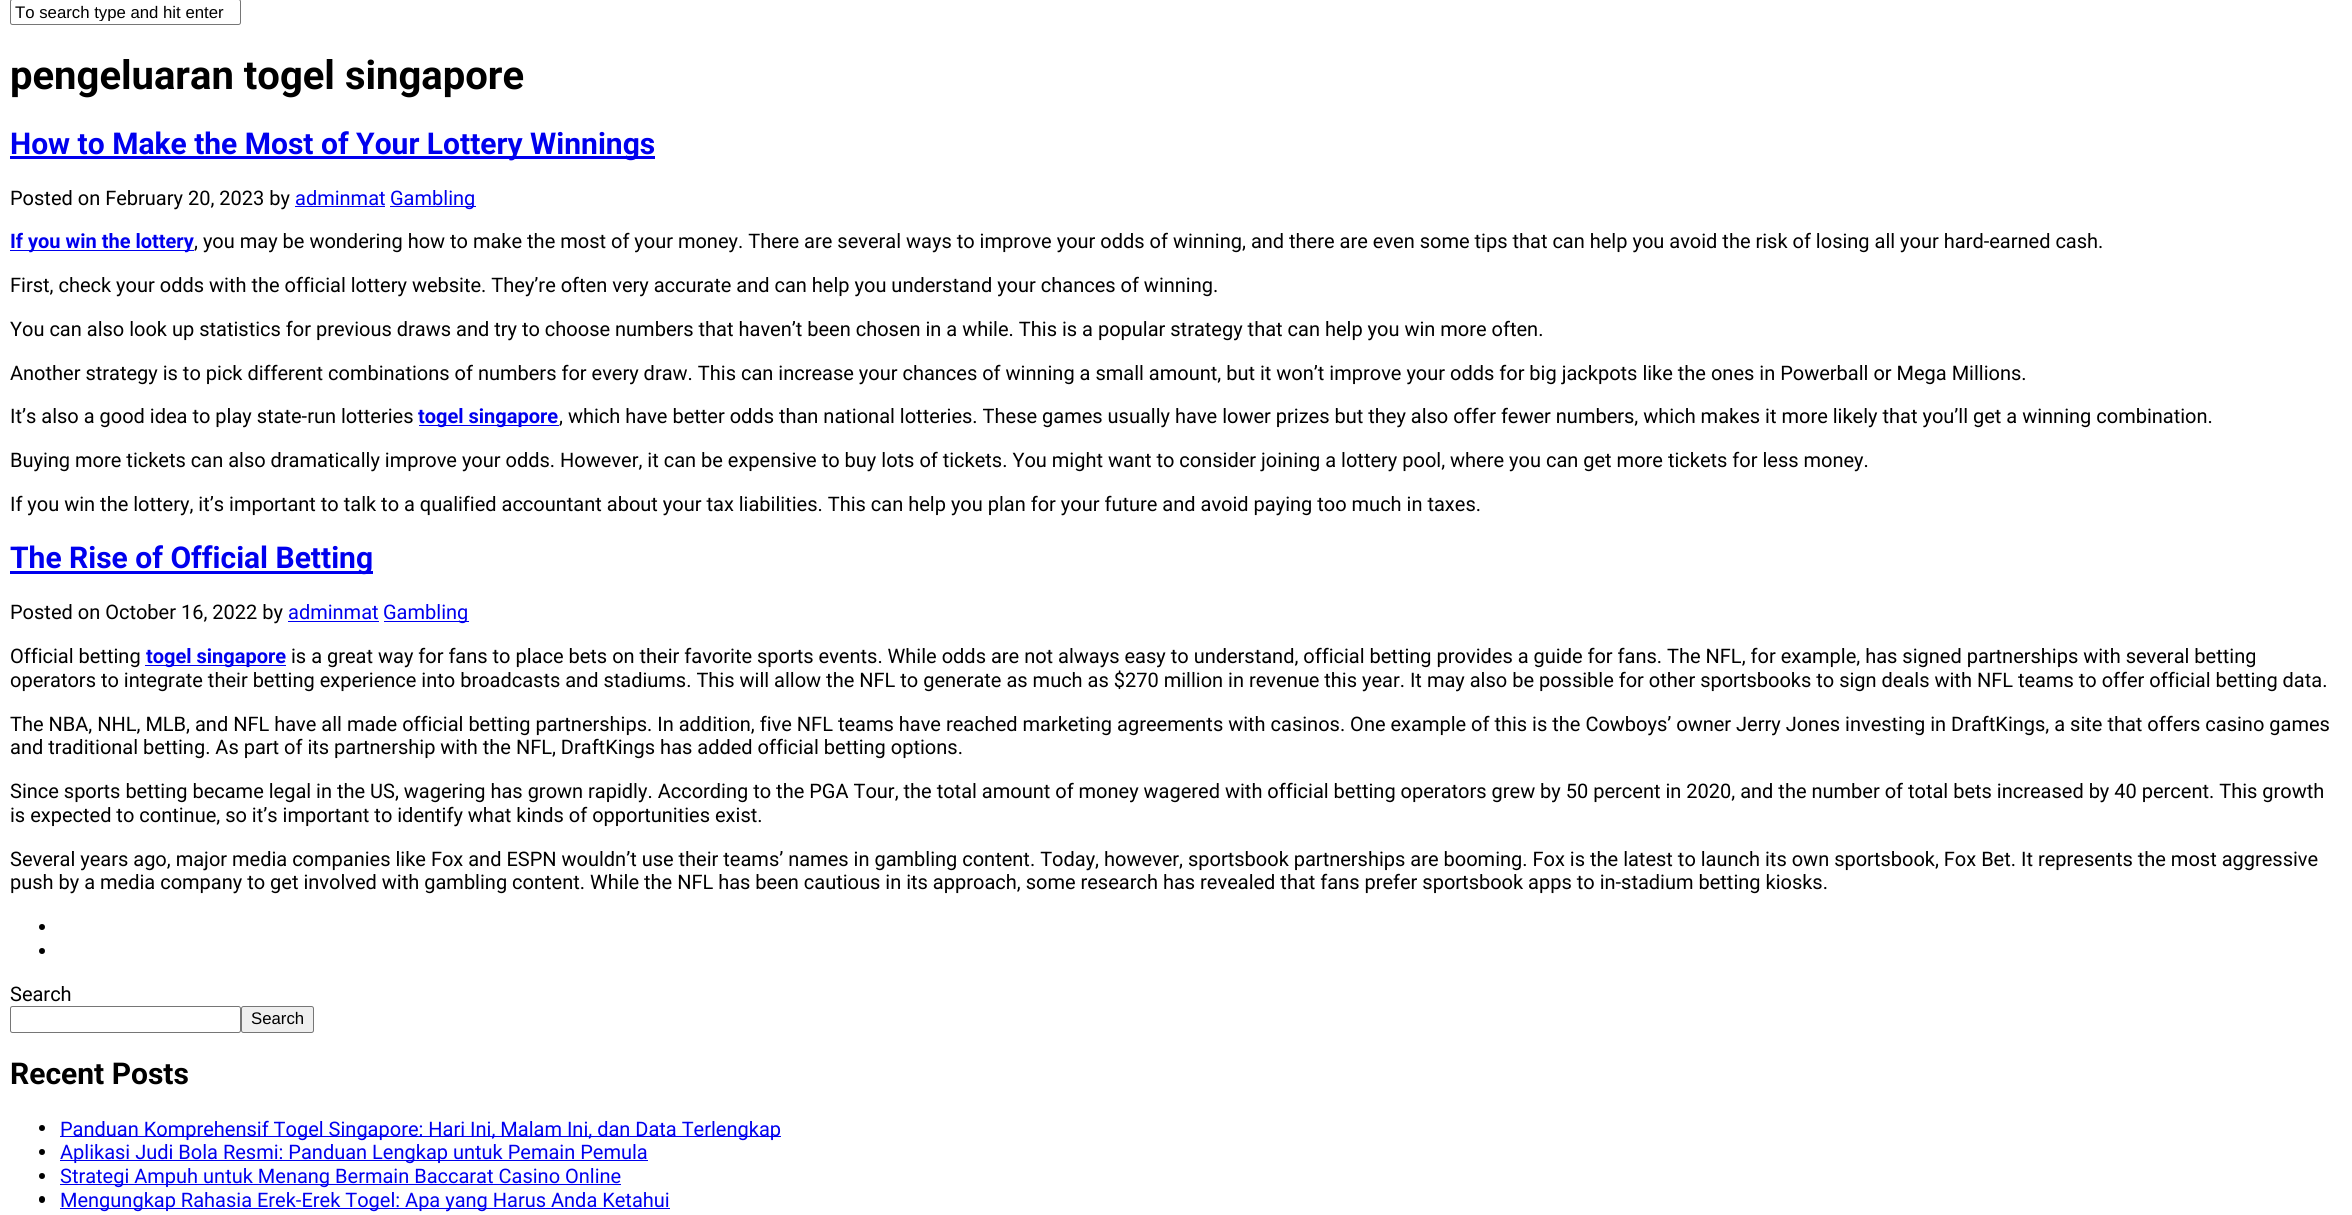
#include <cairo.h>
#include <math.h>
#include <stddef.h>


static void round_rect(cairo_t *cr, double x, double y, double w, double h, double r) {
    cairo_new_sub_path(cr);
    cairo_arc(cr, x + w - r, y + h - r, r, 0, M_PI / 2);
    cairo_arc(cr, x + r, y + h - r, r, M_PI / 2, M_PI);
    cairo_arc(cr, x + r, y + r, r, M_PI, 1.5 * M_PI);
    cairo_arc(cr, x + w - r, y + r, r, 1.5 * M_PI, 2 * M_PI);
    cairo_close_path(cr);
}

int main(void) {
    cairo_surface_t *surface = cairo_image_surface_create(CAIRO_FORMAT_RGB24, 2352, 1215);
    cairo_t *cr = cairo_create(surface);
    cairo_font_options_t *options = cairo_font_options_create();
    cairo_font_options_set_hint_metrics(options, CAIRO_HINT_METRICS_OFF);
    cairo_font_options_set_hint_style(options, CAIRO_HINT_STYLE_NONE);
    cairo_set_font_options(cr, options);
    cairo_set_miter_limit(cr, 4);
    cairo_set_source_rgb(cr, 1, 1, 1);
    cairo_paint(cr);
    round_rect(cr, 10.5, -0.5, 230, 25, 2);
    cairo_set_source_rgb(cr, 0.463, 0.463, 0.463);
    cairo_set_line_width(cr, 1);
    cairo_stroke(cr);
    cairo_save(cr);
    cairo_rectangle(cr, 15, 3, 221, 18);
    cairo_clip(cr);
    cairo_select_font_face(cr, "Liberation Sans", CAIRO_FONT_SLANT_NORMAL, CAIRO_FONT_WEIGHT_NORMAL);
    cairo_set_font_size(cr, 16.75);
    cairo_set_source_rgb(cr, 0, 0, 0);
    cairo_move_to(cr, 15, 18);
    cairo_show_text(cr, "To search type and hit enter");
    cairo_restore(cr);
    cairo_select_font_face(cr, "Roboto", CAIRO_FONT_SLANT_NORMAL, CAIRO_FONT_WEIGHT_BOLD);
    cairo_set_font_size(cr, 40);
    cairo_set_source_rgb(cr, 0, 0, 0);
    cairo_move_to(cr, 10, 89);
    cairo_show_text(cr, "pengeluaran togel singapore");
    cairo_set_source_rgb(cr, 0, 0, 0.933);
    cairo_rectangle(cr, 10, 156, 645, 3);
    cairo_fill(cr);
    cairo_set_font_size(cr, 30);
    cairo_move_to(cr, 10, 154);
    cairo_show_text(cr, "How to Make the Most of Your Lottery Winnings");
    cairo_select_font_face(cr, "Roboto", CAIRO_FONT_SLANT_NORMAL, CAIRO_FONT_WEIGHT_NORMAL);
    cairo_set_font_size(cr, 20);
    cairo_set_source_rgb(cr, 0, 0, 0);
    cairo_move_to(cr, 10, 205);
    cairo_show_text(cr, "Posted on February 20, 2023 by");
    cairo_set_source_rgb(cr, 0, 0, 0.933);
    cairo_move_to(cr, 295, 205);
    cairo_show_text(cr, "adminmat");
    cairo_rectangle(cr, 295, 206, 90, 1);
    cairo_fill(cr);
    cairo_rectangle(cr, 390, 206, 86, 1);
    cairo_fill(cr);
    cairo_move_to(cr, 390, 205);
    cairo_show_text(cr, "Gambling");
    cairo_rectangle(cr, 10, 250, 184, 1);
    cairo_fill(cr);
    cairo_select_font_face(cr, "Roboto", CAIRO_FONT_SLANT_NORMAL, CAIRO_FONT_WEIGHT_BOLD);
    cairo_move_to(cr, 10, 248);
    cairo_show_text(cr, "If you win the lottery");
    cairo_select_font_face(cr, "Roboto", CAIRO_FONT_SLANT_NORMAL, CAIRO_FONT_WEIGHT_NORMAL);
    cairo_set_source_rgb(cr, 0, 0, 0);
    cairo_move_to(cr, 194, 248);
    cairo_show_text(cr, ", you may be wondering how to make the most of your money. There are several ways to improve your odds of winning, and there are even some tips that can help you avoid the risk of losing all your hard-earned cash.");
    cairo_move_to(cr, 10, 292);
    cairo_show_text(cr, "First, check your odds with the official lottery website. They’re often very accurate and can help you understand your chances of winning.");
    cairo_move_to(cr, 10, 336);
    cairo_show_text(cr, "You can also look up statistics for previous draws and try to choose numbers that haven’t been chosen in a while. This is a popular strategy that can help you win more often.");
    cairo_move_to(cr, 10, 380);
    cairo_show_text(cr, "Another strategy is to pick different combinations of numbers for every draw. This can increase your chances of winning a small amount, but it won’t improve your odds for big jackpots like the ones in Powerball or Mega Millions.");
    cairo_move_to(cr, 10, 423);
    cairo_show_text(cr, "It’s also a good idea to play state-run lotteries");
    cairo_set_source_rgb(cr, 0, 0, 0.933);
    cairo_rectangle(cr, 419, 425, 140, 1);
    cairo_fill(cr);
    cairo_select_font_face(cr, "Roboto", CAIRO_FONT_SLANT_NORMAL, CAIRO_FONT_WEIGHT_BOLD);
    cairo_move_to(cr, 418, 423);
    cairo_show_text(cr, "togel singapore");
    cairo_select_font_face(cr, "Roboto", CAIRO_FONT_SLANT_NORMAL, CAIRO_FONT_WEIGHT_NORMAL);
    cairo_set_source_rgb(cr, 0, 0, 0);
    cairo_move_to(cr, 559, 423);
    cairo_show_text(cr, ", which have better odds than national lotteries. These games usually have lower prizes but they also offer fewer numbers, which makes it more likely that you’ll get a winning combination.");
    cairo_move_to(cr, 10, 467);
    cairo_show_text(cr, "Buying more tickets can also dramatically improve your odds. However, it can be expensive to buy lots of tickets. You might want to consider joining a lottery pool, where you can get more tickets for less money.");
    cairo_move_to(cr, 10, 511);
    cairo_show_text(cr, "If you win the lottery, it’s important to talk to a qualified accountant about your tax liabilities. This can help you plan for your future and avoid paying too much in taxes.");
    cairo_set_source_rgb(cr, 0, 0, 0.933);
    cairo_rectangle(cr, 10, 571, 363, 3);
    cairo_fill(cr);
    cairo_select_font_face(cr, "Roboto", CAIRO_FONT_SLANT_NORMAL, CAIRO_FONT_WEIGHT_BOLD);
    cairo_set_font_size(cr, 30);
    cairo_move_to(cr, 10, 568);
    cairo_show_text(cr, "The Rise of Official Betting");
    cairo_select_font_face(cr, "Roboto", CAIRO_FONT_SLANT_NORMAL, CAIRO_FONT_WEIGHT_NORMAL);
    cairo_set_font_size(cr, 20);
    cairo_set_source_rgb(cr, 0, 0, 0);
    cairo_move_to(cr, 10, 619);
    cairo_show_text(cr, "Posted on October 16, 2022 by");
    cairo_set_source_rgb(cr, 0, 0, 0.933);
    cairo_move_to(cr, 288, 619);
    cairo_show_text(cr, "adminmat");
    cairo_rectangle(cr, 288, 621, 91, 1);
    cairo_fill(cr);
    cairo_rectangle(cr, 384, 621, 85, 1);
    cairo_fill(cr);
    cairo_move_to(cr, 383, 619);
    cairo_show_text(cr, "Gambling");
    cairo_set_source_rgb(cr, 0, 0, 0);
    cairo_move_to(cr, 10, 663);
    cairo_show_text(cr, "Official betting");
    cairo_set_source_rgb(cr, 0, 0, 0.933);
    cairo_rectangle(cr, 145, 665, 141, 1);
    cairo_fill(cr);
    cairo_select_font_face(cr, "Roboto", CAIRO_FONT_SLANT_NORMAL, CAIRO_FONT_WEIGHT_BOLD);
    cairo_move_to(cr, 146, 663);
    cairo_show_text(cr, "togel singapore");
    cairo_select_font_face(cr, "Roboto", CAIRO_FONT_SLANT_NORMAL, CAIRO_FONT_WEIGHT_NORMAL);
    cairo_set_source_rgb(cr, 0, 0, 0);
    cairo_move_to(cr, 291, 663);
    cairo_show_text(cr, "is a great way for fans to place bets on their favorite sports events. While odds are not always easy to understand, official betting provides a guide for fans. The NFL, for example, has signed partnerships with several betting");
    cairo_move_to(cr, 10, 687);
    cairo_show_text(cr, "operators to integrate their betting experience into broadcasts and stadiums. This will allow the NFL to generate as much as $270 million in revenue this year. It may also be possible for other sportsbooks to sign deals with NFL teams to offer official betting data.");
    cairo_move_to(cr, 10, 731);
    cairo_show_text(cr, "The NBA, NHL, MLB, and NFL have all made official betting partnerships. In addition, five NFL teams have reached marketing agreements with casinos. One example of this is the Cowboys’ owner Jerry Jones investing in DraftKings, a site that offers casino games");
    cairo_move_to(cr, 10, 754);
    cairo_show_text(cr, "and traditional betting. As part of its partnership with the NFL, DraftKings has added official betting options.");
    cairo_move_to(cr, 10, 798);
    cairo_show_text(cr, "Since sports betting became legal in the US, wagering has grown rapidly. According to the PGA Tour, the total amount of money wagered with official betting operators grew by 50 percent in 2020, and the number of total bets increased by 40 percent. This growth");
    cairo_move_to(cr, 10, 822);
    cairo_show_text(cr, "is expected to continue, so it’s important to identify what kinds of opportunities exist.");
    cairo_move_to(cr, 10, 866);
    cairo_show_text(cr, "Several years ago, major media companies like Fox and ESPN wouldn’t use their teams’ names in gambling content. Today, however, sportsbook partnerships are booming. Fox is the latest to launch its own sportsbook, Fox Bet. It represents the most aggressive");
    cairo_move_to(cr, 10, 889);
    cairo_show_text(cr, "push by a media company to get involved with gambling content. While the NFL has been cautious in its approach, some research has revealed that fans prefer sportsbook apps to in-stadium betting kiosks.");
    cairo_new_path(cr);
    cairo_arc(cr, 42, 927, 3, 0, 2 * M_PI);
    cairo_fill(cr);
    cairo_arc(cr, 42, 951, 3, 0, 2 * M_PI);
    cairo_fill(cr);
    cairo_move_to(cr, 10, 1001);
    cairo_show_text(cr, "Search");
    round_rect(cr, 10.5, 1006.5, 230, 26, 2);
    cairo_set_source_rgb(cr, 0.463, 0.463, 0.463);
    cairo_stroke(cr);
    cairo_set_source_rgb(cr, 0.937, 0.937, 0.937);
    round_rect(cr, 241.5, 1006.5, 72, 26, 2);
    cairo_fill_preserve(cr);
    cairo_set_source_rgb(cr, 0.463, 0.463, 0.463);
    cairo_stroke(cr);
    cairo_select_font_face(cr, "Liberation Sans", CAIRO_FONT_SLANT_NORMAL, CAIRO_FONT_WEIGHT_NORMAL);
    cairo_set_font_size(cr, 16.75);
    cairo_set_source_rgb(cr, 0, 0, 0);
    cairo_move_to(cr, 251, 1024);
    cairo_show_text(cr, "Search");
    cairo_select_font_face(cr, "Roboto", CAIRO_FONT_SLANT_NORMAL, CAIRO_FONT_WEIGHT_BOLD);
    cairo_set_font_size(cr, 30);
    cairo_move_to(cr, 10, 1084);
    cairo_show_text(cr, "Recent Posts");
    cairo_new_path(cr);
    cairo_arc(cr, 42, 1128, 3, 0, 2 * M_PI);
    cairo_fill(cr);
    cairo_set_source_rgb(cr, 0, 0, 0.933);
    cairo_rectangle(cr, 60, 1136, 721, 1);
    cairo_fill(cr);
    cairo_select_font_face(cr, "Roboto", CAIRO_FONT_SLANT_NORMAL, CAIRO_FONT_WEIGHT_NORMAL);
    cairo_set_font_size(cr, 20);
    cairo_move_to(cr, 60, 1136);
    cairo_show_text(cr, "Panduan Komprehensif Togel Singapore: Hari Ini, Malam Ini, dan Data Terlengkap");
    cairo_set_source_rgb(cr, 0, 0, 0);
    cairo_new_path(cr);
    cairo_arc(cr, 42, 1152, 3, 0, 2 * M_PI);
    cairo_fill(cr);
    cairo_set_source_rgb(cr, 0, 0, 0.933);
    cairo_rectangle(cr, 60, 1160, 588, 1);
    cairo_fill(cr);
    cairo_move_to(cr, 60, 1159);
    cairo_show_text(cr, "Aplikasi Judi Bola Resmi: Panduan Lengkap untuk Pemain Pemula");
    cairo_set_source_rgb(cr, 0, 0, 0);
    cairo_new_path(cr);
    cairo_arc(cr, 42, 1176, 3, 0, 2 * M_PI);
    cairo_fill(cr);
    cairo_set_source_rgb(cr, 0, 0, 0.933);
    cairo_rectangle(cr, 60, 1184, 561, 1);
    cairo_fill(cr);
    cairo_move_to(cr, 60, 1183);
    cairo_show_text(cr, "Strategi Ampuh untuk Menang Bermain Baccarat Casino Online");
    cairo_set_source_rgb(cr, 0, 0, 0);
    round_rect(cr, 39, 1196, 6, 7, 3);
    cairo_fill(cr);
    cairo_set_source_rgb(cr, 0, 0, 0.933);
    cairo_rectangle(cr, 60, 1208, 610, 1);
    cairo_fill(cr);
    cairo_move_to(cr, 60, 1207);
    cairo_show_text(cr, "Mengungkap Rahasia Erek-Erek Togel: Apa yang Harus Anda Ketahui");
    cairo_surface_write_to_png(surface, "page.png");
    cairo_font_options_destroy(options);
    cairo_destroy(cr);
    cairo_surface_destroy(surface);
    return 0;
}
